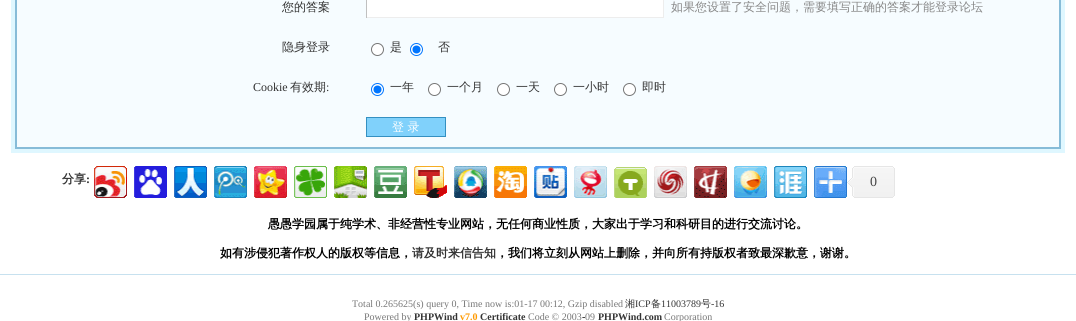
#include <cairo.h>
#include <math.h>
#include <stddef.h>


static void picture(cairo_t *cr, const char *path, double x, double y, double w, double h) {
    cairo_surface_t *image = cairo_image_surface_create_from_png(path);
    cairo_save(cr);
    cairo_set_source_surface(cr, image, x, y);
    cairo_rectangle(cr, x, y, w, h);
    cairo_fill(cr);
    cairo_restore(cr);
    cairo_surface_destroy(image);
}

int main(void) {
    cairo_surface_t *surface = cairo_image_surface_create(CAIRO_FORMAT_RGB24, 1076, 321);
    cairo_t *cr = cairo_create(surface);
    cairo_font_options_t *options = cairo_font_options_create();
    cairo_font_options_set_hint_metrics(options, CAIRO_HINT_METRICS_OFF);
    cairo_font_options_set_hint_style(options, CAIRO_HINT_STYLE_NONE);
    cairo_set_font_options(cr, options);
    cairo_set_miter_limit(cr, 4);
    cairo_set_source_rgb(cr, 1, 1, 1);
    cairo_paint(cr);
    cairo_set_source_rgb(cr, 0.961, 0.988, 1);
    cairo_rectangle(cr, 17, 0, 1042, 147);
    cairo_fill(cr);
    cairo_rectangle(cr, 13, -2, 1050, 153);
    cairo_set_source_rgb(cr, 0.875, 0.965, 1);
    cairo_set_line_width(cr, 4);
    cairo_stroke(cr);
    cairo_rectangle(cr, 16, -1, 1044, 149);
    cairo_set_source_rgb(cr, 0.529, 0.737, 0.847);
    cairo_set_line_width(cr, 2);
    cairo_stroke(cr);
    cairo_select_font_face(cr, "WenQuanYi Zen Hei Medium", CAIRO_FONT_SLANT_NORMAL, CAIRO_FONT_WEIGHT_NORMAL);
    cairo_set_font_size(cr, 12);
    cairo_set_source_rgb(cr, 0.2, 0.2, 0.2);
    cairo_move_to(cr, 282, 11);
    cairo_show_text(cr, "您的答案");
    cairo_set_source_rgb(cr, 1, 1, 1);
    cairo_rectangle(cr, 367, 0, 296, 17);
    cairo_fill(cr);
    cairo_set_source_rgb(cr, 0.929, 0.929, 0.929);
    cairo_rectangle(cr, 663, 0, 1, 18);
    cairo_fill(cr);
    cairo_rectangle(cr, 366, 17, 298, 1);
    cairo_fill(cr);
    cairo_set_source_rgb(cr, 0.753, 0.753, 0.753);
    cairo_rectangle(cr, 366, 0, 1, 18);
    cairo_fill(cr);
    cairo_set_source_rgb(cr, 0.533, 0.533, 0.533);
    cairo_move_to(cr, 671, 11);
    cairo_show_text(cr, "如果您设置了安全问题，需要填写正确的答案才能登录论坛");
    cairo_set_source_rgb(cr, 0.2, 0.2, 0.2);
    cairo_move_to(cr, 282, 51);
    cairo_show_text(cr, "隐身登录");
    cairo_set_source_rgb(cr, 1, 1, 1);
    cairo_new_path(cr);
    cairo_arc(cr, 377.5, 49.5, 6, 0, 2 * M_PI);
    cairo_fill_preserve(cr);
    cairo_set_source_rgb(cr, 0.463, 0.463, 0.463);
    cairo_set_line_width(cr, 1);
    cairo_stroke(cr);
    cairo_set_source_rgb(cr, 0.2, 0.2, 0.2);
    cairo_move_to(cr, 390, 51);
    cairo_show_text(cr, "是");
    cairo_set_source_rgb(cr, 1, 1, 1);
    cairo_new_path(cr);
    cairo_arc(cr, 416.5, 49.5, 6, 0, 2 * M_PI);
    cairo_fill_preserve(cr);
    cairo_set_source_rgb(cr, 0, 0.459, 1);
    cairo_stroke(cr);
    cairo_arc(cr, 416.5, 49.5, 4, 0, 2 * M_PI);
    cairo_fill(cr);
    cairo_set_source_rgb(cr, 0.2, 0.2, 0.2);
    cairo_move_to(cr, 438, 51);
    cairo_show_text(cr, "否");
    cairo_select_font_face(cr, "Liberation Serif", CAIRO_FONT_SLANT_NORMAL, CAIRO_FONT_WEIGHT_NORMAL);
    cairo_move_to(cr, 253, 91);
    cairo_show_text(cr, "Cookie");
    cairo_select_font_face(cr, "WenQuanYi Zen Hei Medium", CAIRO_FONT_SLANT_NORMAL, CAIRO_FONT_WEIGHT_NORMAL);
    cairo_move_to(cr, 290, 91);
    cairo_show_text(cr, "有效期");
    cairo_select_font_face(cr, "Liberation Serif", CAIRO_FONT_SLANT_NORMAL, CAIRO_FONT_WEIGHT_NORMAL);
    cairo_move_to(cr, 326, 91);
    cairo_show_text(cr, ":");
    cairo_set_source_rgb(cr, 1, 1, 1);
    cairo_new_path(cr);
    cairo_arc(cr, 377.5, 89.5, 6, 0, 2 * M_PI);
    cairo_fill_preserve(cr);
    cairo_set_source_rgb(cr, 0, 0.459, 1);
    cairo_stroke(cr);
    cairo_arc(cr, 377.5, 89.5, 4, 0, 2 * M_PI);
    cairo_fill(cr);
    cairo_select_font_face(cr, "WenQuanYi Zen Hei Medium", CAIRO_FONT_SLANT_NORMAL, CAIRO_FONT_WEIGHT_NORMAL);
    cairo_set_source_rgb(cr, 0.2, 0.2, 0.2);
    cairo_move_to(cr, 390, 91);
    cairo_show_text(cr, "一年");
    cairo_set_source_rgb(cr, 1, 1, 1);
    cairo_new_path(cr);
    cairo_arc(cr, 434.5, 89.5, 6, 0, 2 * M_PI);
    cairo_fill_preserve(cr);
    cairo_set_source_rgb(cr, 0.463, 0.463, 0.463);
    cairo_stroke(cr);
    cairo_set_source_rgb(cr, 0.2, 0.2, 0.2);
    cairo_move_to(cr, 447, 91);
    cairo_show_text(cr, "一个月");
    cairo_set_source_rgb(cr, 1, 1, 1);
    cairo_new_path(cr);
    cairo_arc(cr, 503.5, 89.5, 6, 0, 2 * M_PI);
    cairo_fill_preserve(cr);
    cairo_set_source_rgb(cr, 0.463, 0.463, 0.463);
    cairo_stroke(cr);
    cairo_set_source_rgb(cr, 0.2, 0.2, 0.2);
    cairo_move_to(cr, 516, 91);
    cairo_show_text(cr, "一天");
    cairo_set_source_rgb(cr, 1, 1, 1);
    cairo_new_path(cr);
    cairo_arc(cr, 560.5, 89.5, 6, 0, 2 * M_PI);
    cairo_fill_preserve(cr);
    cairo_set_source_rgb(cr, 0.463, 0.463, 0.463);
    cairo_stroke(cr);
    cairo_set_source_rgb(cr, 0.2, 0.2, 0.2);
    cairo_move_to(cr, 573, 91);
    cairo_show_text(cr, "一小时");
    cairo_set_source_rgb(cr, 1, 1, 1);
    cairo_new_path(cr);
    cairo_arc(cr, 629.5, 89.5, 6, 0, 2 * M_PI);
    cairo_fill_preserve(cr);
    cairo_set_source_rgb(cr, 0.463, 0.463, 0.463);
    cairo_stroke(cr);
    cairo_set_source_rgb(cr, 0.2, 0.2, 0.2);
    cairo_move_to(cr, 642, 91);
    cairo_show_text(cr, "即时");
    cairo_set_source_rgb(cr, 0.502, 0.82, 0.984);
    cairo_rectangle(cr, 366.5, 117.5, 79, 19);
    cairo_fill_preserve(cr);
    cairo_set_source_rgb(cr, 0.204, 0.565, 0.757);
    cairo_stroke(cr);
    cairo_set_source_rgb(cr, 1, 1, 1);
    cairo_move_to(cr, 392, 131);
    cairo_show_text(cr, "登 录");
    cairo_select_font_face(cr, "WenQuanYi Zen Hei", CAIRO_FONT_SLANT_NORMAL, CAIRO_FONT_WEIGHT_BOLD);
    cairo_set_source_rgb(cr, 0.2, 0.2, 0.2);
    cairo_move_to(cr, 62, 183);
    cairo_show_text(cr, "分享");
    cairo_select_font_face(cr, "Liberation Serif", CAIRO_FONT_SLANT_NORMAL, CAIRO_FONT_WEIGHT_BOLD);
    cairo_move_to(cr, 86, 183);
    cairo_show_text(cr, ":");
    picture(cr, "img1.png", 94, 166, 33, 32);
    picture(cr, "img2.png", 134, 166, 33, 32);
    picture(cr, "img3.png", 174, 166, 33, 32);
    picture(cr, "img4.png", 214, 166, 33, 32);
    picture(cr, "img5.png", 254, 166, 33, 32);
    picture(cr, "img6.png", 294, 166, 33, 32);
    picture(cr, "img7.png", 334, 166, 33, 32);
    picture(cr, "img8.png", 374, 166, 33, 32);
    picture(cr, "img9.png", 414, 166, 33, 32);
    picture(cr, "img10.png", 454, 166, 33, 32);
    picture(cr, "img11.png", 494, 166, 33, 32);
    picture(cr, "img12.png", 534, 166, 33, 32);
    picture(cr, "img13.png", 574, 166, 33, 32);
    picture(cr, "img14.png", 614, 167, 33, 31);
    picture(cr, "img15.png", 654, 166, 33, 32);
    picture(cr, "img16.png", 694, 166, 33, 32);
    picture(cr, "img17.png", 734, 166, 33, 32);
    picture(cr, "img18.png", 774, 166, 33, 32);
    picture(cr, "img19.png", 814, 166, 33, 32);
    picture(cr, "img20.png", 847, 166, 48, 32);
    cairo_select_font_face(cr, "Liberation Serif", CAIRO_FONT_SLANT_NORMAL, CAIRO_FONT_WEIGHT_NORMAL);
    cairo_set_font_size(cr, 14);
    cairo_set_source_rgb(cr, 0.271, 0.271, 0.271);
    cairo_move_to(cr, 870, 186);
    cairo_show_text(cr, "0");
    cairo_select_font_face(cr, "WenQuanYi Zen Hei", CAIRO_FONT_SLANT_NORMAL, CAIRO_FONT_WEIGHT_BOLD);
    cairo_set_font_size(cr, 12);
    cairo_set_source_rgb(cr, 0, 0, 0);
    cairo_move_to(cr, 268, 228);
    cairo_show_text(cr, "愚愚学园属于纯学术、非经营性专业网站，无任何商业性质，大家出于学习和科研目的进行交流讨论。");
    cairo_move_to(cr, 220, 257);
    cairo_show_text(cr, "如有涉侵犯著作权人的版权等信息，");
    cairo_set_source_rgb(cr, 0.2, 0.2, 0.2);
    cairo_move_to(cr, 412, 257);
    cairo_show_text(cr, "请及时来信告知");
    cairo_set_source_rgb(cr, 0, 0, 0);
    cairo_move_to(cr, 496, 257);
    cairo_show_text(cr, "，我们将立刻从网站上删除，并向所有持版权者致最深歉意，谢谢。");
    cairo_set_source_rgb(cr, 0.78, 0.882, 0.937);
    cairo_rectangle(cr, 0, 274, 1076, 1);
    cairo_fill(cr);
    cairo_select_font_face(cr, "Liberation Serif", CAIRO_FONT_SLANT_NORMAL, CAIRO_FONT_WEIGHT_NORMAL);
    cairo_set_font_size(cr, 10);
    cairo_set_source_rgb(cr, 0.467, 0.467, 0.467);
    cairo_move_to(cr, 352, 307);
    cairo_show_text(cr, "Total 0.265625(s) query 0, Time now is:01-17 00:12, Gzip disabled");
    cairo_select_font_face(cr, "WenQuanYi Zen Hei Medium", CAIRO_FONT_SLANT_NORMAL, CAIRO_FONT_WEIGHT_NORMAL);
    cairo_set_source_rgb(cr, 0.2, 0.2, 0.2);
    cairo_move_to(cr, 625, 307);
    cairo_show_text(cr, "湘");
    cairo_select_font_face(cr, "Liberation Serif", CAIRO_FONT_SLANT_NORMAL, CAIRO_FONT_WEIGHT_NORMAL);
    cairo_move_to(cr, 635, 307);
    cairo_show_text(cr, "ICP");
    cairo_select_font_face(cr, "WenQuanYi Zen Hei Medium", CAIRO_FONT_SLANT_NORMAL, CAIRO_FONT_WEIGHT_NORMAL);
    cairo_move_to(cr, 651, 307);
    cairo_show_text(cr, "备");
    cairo_select_font_face(cr, "Liberation Serif", CAIRO_FONT_SLANT_NORMAL, CAIRO_FONT_WEIGHT_NORMAL);
    cairo_move_to(cr, 661, 307);
    cairo_show_text(cr, "11003789");
    cairo_select_font_face(cr, "WenQuanYi Zen Hei Medium", CAIRO_FONT_SLANT_NORMAL, CAIRO_FONT_WEIGHT_NORMAL);
    cairo_move_to(cr, 701, 307);
    cairo_show_text(cr, "号");
    cairo_select_font_face(cr, "Liberation Serif", CAIRO_FONT_SLANT_NORMAL, CAIRO_FONT_WEIGHT_NORMAL);
    cairo_move_to(cr, 711, 307);
    cairo_show_text(cr, "-16");
    cairo_set_source_rgb(cr, 0.467, 0.467, 0.467);
    cairo_move_to(cr, 364, 320);
    cairo_show_text(cr, "Powered by");
    cairo_select_font_face(cr, "Liberation Serif", CAIRO_FONT_SLANT_NORMAL, CAIRO_FONT_WEIGHT_BOLD);
    cairo_set_source_rgb(cr, 0.2, 0.2, 0.2);
    cairo_move_to(cr, 414, 320);
    cairo_show_text(cr, "PHPWind");
    cairo_set_source_rgb(cr, 1, 0.6, 0);
    cairo_move_to(cr, 460, 320);
    cairo_show_text(cr, "v7.0");
    cairo_set_source_rgb(cr, 0.2, 0.2, 0.2);
    cairo_move_to(cr, 480, 320);
    cairo_show_text(cr, "Certificate");
    cairo_select_font_face(cr, "Liberation Serif", CAIRO_FONT_SLANT_NORMAL, CAIRO_FONT_WEIGHT_NORMAL);
    cairo_set_source_rgb(cr, 0.467, 0.467, 0.467);
    cairo_move_to(cr, 528, 320);
    cairo_show_text(cr, "Code © 2003");
    cairo_set_source_rgb(cr, 0, 0, 0);
    cairo_move_to(cr, 582, 320);
    cairo_show_text(cr, "-");
    cairo_set_source_rgb(cr, 0.467, 0.467, 0.467);
    cairo_move_to(cr, 585, 320);
    cairo_show_text(cr, "09");
    cairo_select_font_face(cr, "Liberation Serif", CAIRO_FONT_SLANT_NORMAL, CAIRO_FONT_WEIGHT_BOLD);
    cairo_set_source_rgb(cr, 0.2, 0.2, 0.2);
    cairo_move_to(cr, 598, 320);
    cairo_show_text(cr, "PHPWind.com");
    cairo_select_font_face(cr, "Liberation Serif", CAIRO_FONT_SLANT_NORMAL, CAIRO_FONT_WEIGHT_NORMAL);
    cairo_set_source_rgb(cr, 0.467, 0.467, 0.467);
    cairo_move_to(cr, 664, 320);
    cairo_show_text(cr, "Corporation");
    cairo_surface_write_to_png(surface, "page.png");
    cairo_font_options_destroy(options);
    cairo_destroy(cr);
    cairo_surface_destroy(surface);
    return 0;
}
